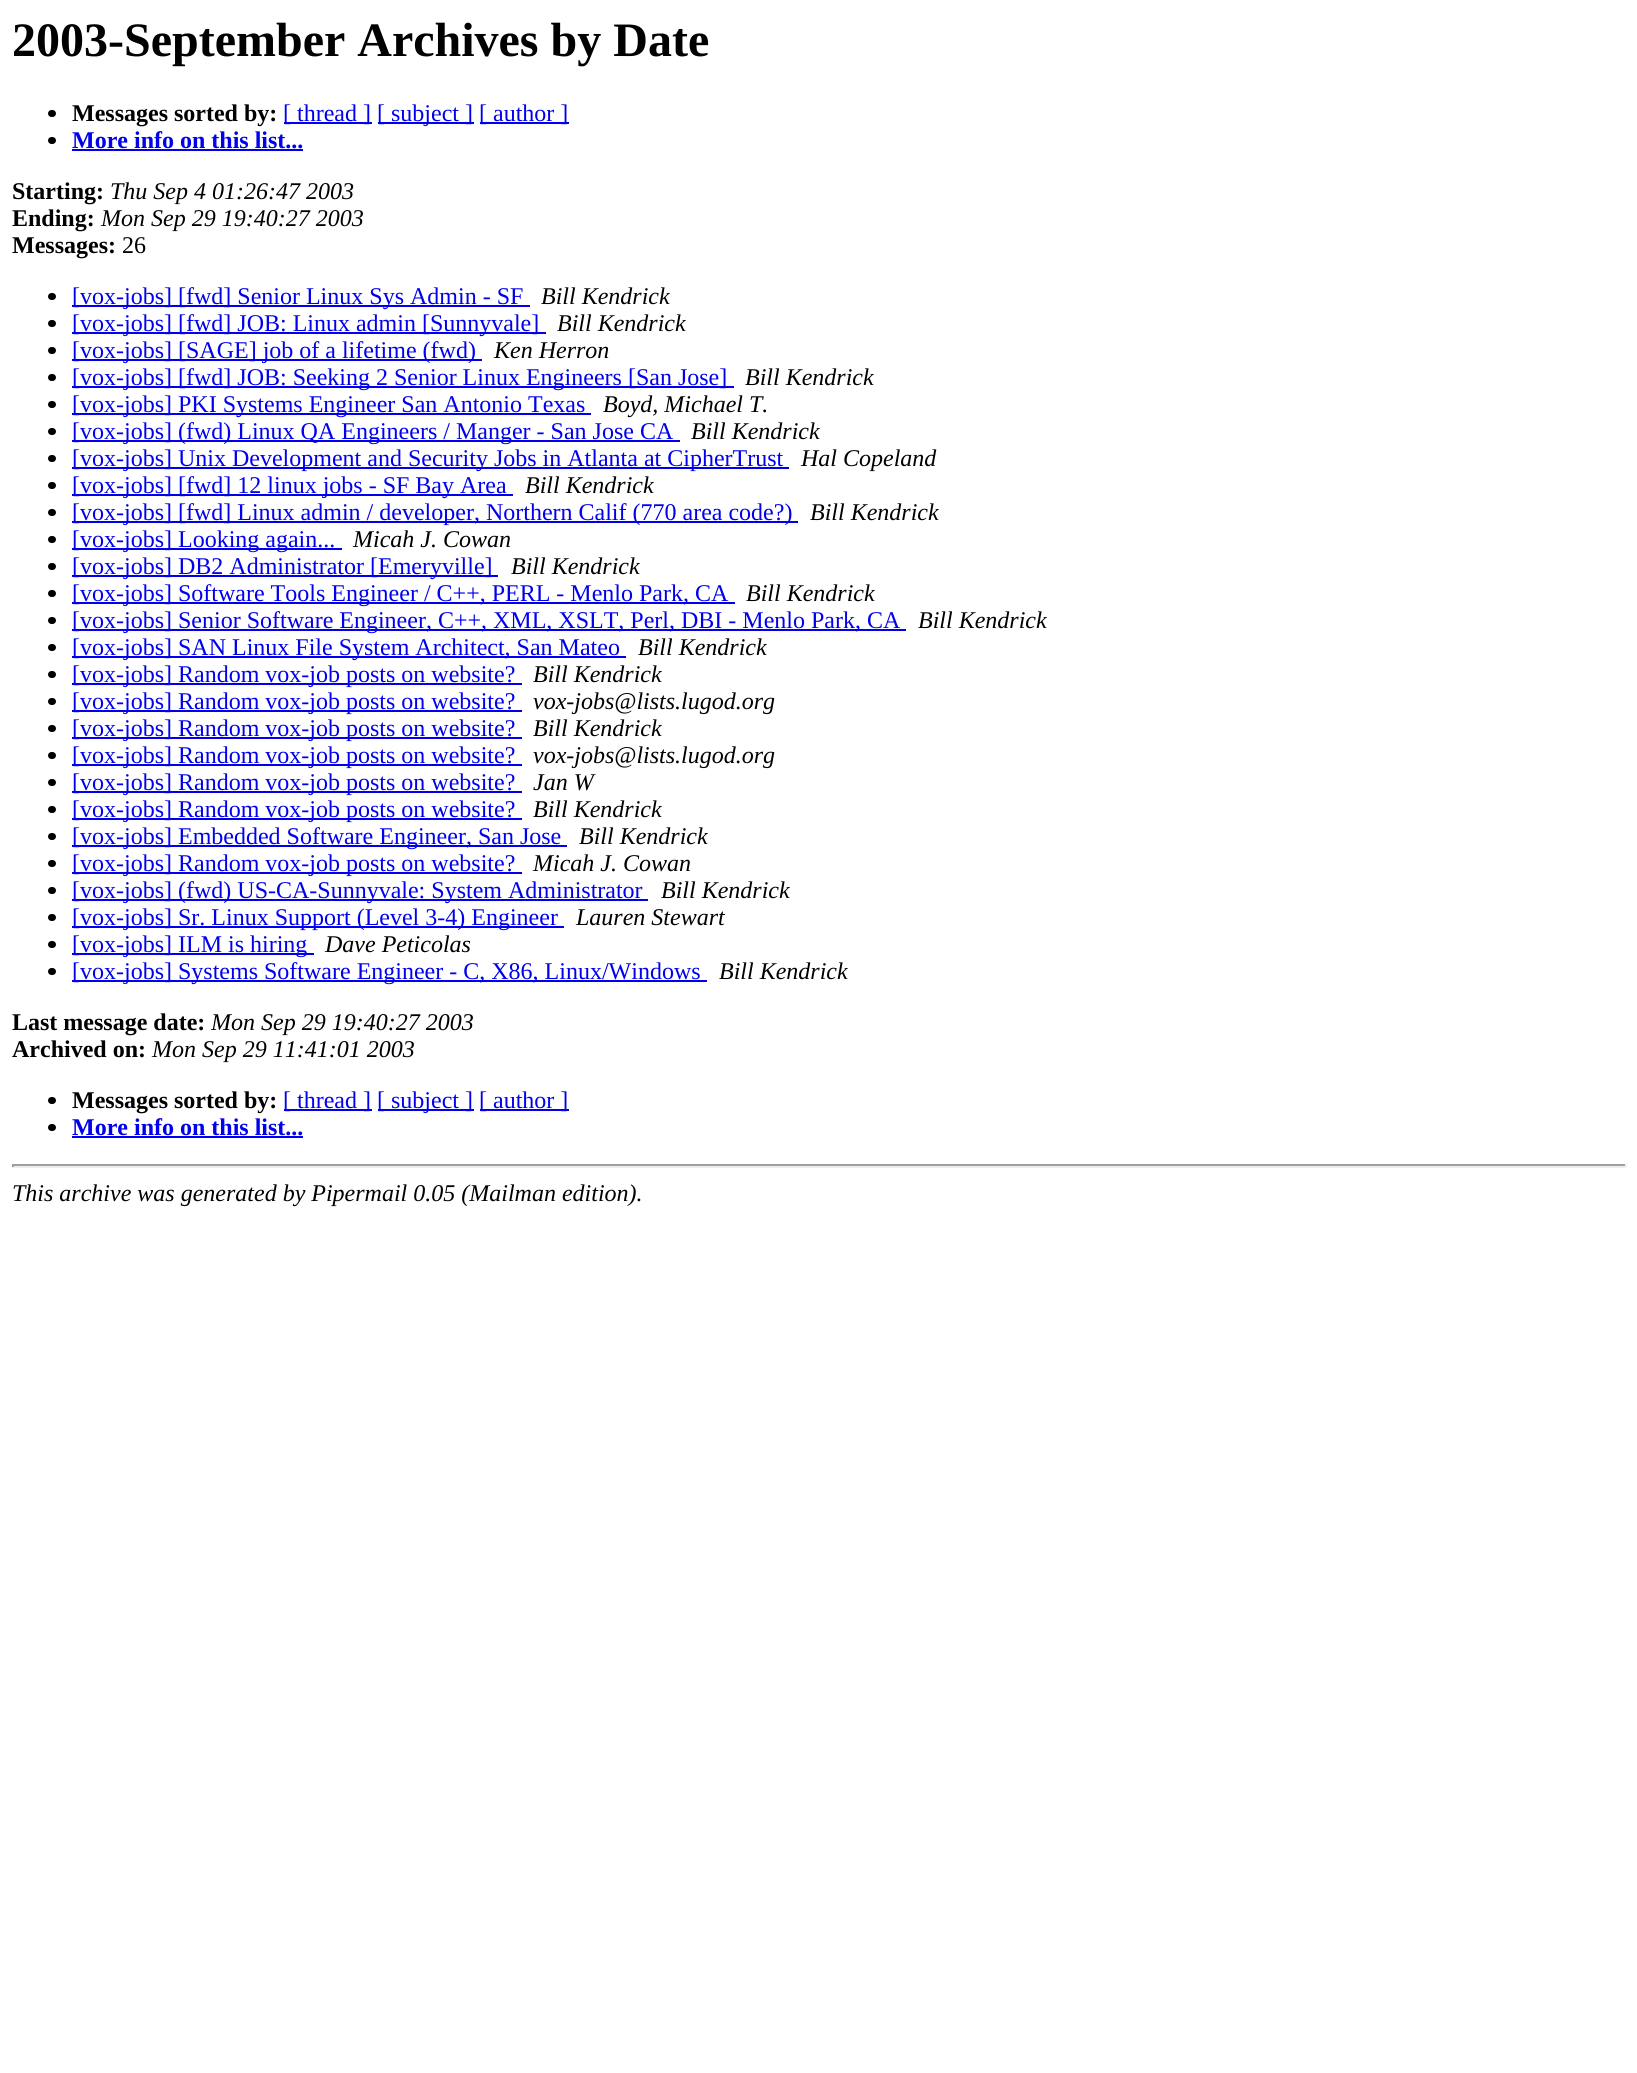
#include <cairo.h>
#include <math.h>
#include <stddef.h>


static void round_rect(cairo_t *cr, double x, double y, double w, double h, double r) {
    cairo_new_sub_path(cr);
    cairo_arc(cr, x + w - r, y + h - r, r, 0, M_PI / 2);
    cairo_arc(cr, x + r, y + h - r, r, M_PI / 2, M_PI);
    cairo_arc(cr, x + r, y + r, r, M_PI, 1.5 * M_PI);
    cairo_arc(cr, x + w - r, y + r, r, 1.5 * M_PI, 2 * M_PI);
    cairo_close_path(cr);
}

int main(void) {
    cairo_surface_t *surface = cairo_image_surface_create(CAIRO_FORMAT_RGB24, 1637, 2073);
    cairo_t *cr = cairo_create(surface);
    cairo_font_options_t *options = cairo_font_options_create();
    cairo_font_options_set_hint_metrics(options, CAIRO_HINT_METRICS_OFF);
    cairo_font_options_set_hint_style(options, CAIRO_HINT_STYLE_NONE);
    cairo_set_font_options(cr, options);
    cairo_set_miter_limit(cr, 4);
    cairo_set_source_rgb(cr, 1, 1, 1);
    cairo_paint(cr);
    cairo_select_font_face(cr, "Liberation Serif", CAIRO_FONT_SLANT_NORMAL, CAIRO_FONT_WEIGHT_BOLD);
    cairo_set_font_size(cr, 48);
    cairo_set_source_rgb(cr, 0, 0, 0);
    cairo_move_to(cr, 12, 56);
    cairo_show_text(cr, "2003-September Archives by Date");
    round_rect(cr, 48, 110, 8, 7, 3.5);
    cairo_fill(cr);
    cairo_set_font_size(cr, 24);
    cairo_move_to(cr, 72, 121);
    cairo_show_text(cr, "Messages sorted by:");
    cairo_set_source_rgb(cr, 0, 0, 0.933);
    cairo_rectangle(cr, 284, 122, 88, 2);
    cairo_fill(cr);
    cairo_select_font_face(cr, "Liberation Serif", CAIRO_FONT_SLANT_NORMAL, CAIRO_FONT_WEIGHT_NORMAL);
    cairo_move_to(cr, 283, 121);
    cairo_show_text(cr, "[ thread ]");
    cairo_rectangle(cr, 378, 122, 96, 2);
    cairo_fill(cr);
    cairo_move_to(cr, 377, 121);
    cairo_show_text(cr, "[ subject ]");
    cairo_rectangle(cr, 480, 122, 89, 2);
    cairo_fill(cr);
    cairo_move_to(cr, 479, 121);
    cairo_show_text(cr, "[ author ]");
    cairo_set_source_rgb(cr, 0, 0, 0);
    round_rect(cr, 48, 137, 8, 7, 3.5);
    cairo_fill(cr);
    cairo_select_font_face(cr, "Liberation Serif", CAIRO_FONT_SLANT_NORMAL, CAIRO_FONT_WEIGHT_BOLD);
    cairo_set_source_rgb(cr, 0, 0, 0.933);
    cairo_move_to(cr, 72, 148);
    cairo_show_text(cr, "More info on this list...");
    cairo_rectangle(cr, 72, 149, 231, 2);
    cairo_fill(cr);
    cairo_set_source_rgb(cr, 0, 0, 0);
    cairo_move_to(cr, 12, 199);
    cairo_show_text(cr, "Starting:");
    cairo_select_font_face(cr, "Liberation Serif", CAIRO_FONT_SLANT_ITALIC, CAIRO_FONT_WEIGHT_NORMAL);
    cairo_move_to(cr, 110, 199);
    cairo_show_text(cr, "Thu Sep 4 01:26:47 2003");
    cairo_select_font_face(cr, "Liberation Serif", CAIRO_FONT_SLANT_NORMAL, CAIRO_FONT_WEIGHT_BOLD);
    cairo_move_to(cr, 12, 226);
    cairo_show_text(cr, "Ending:");
    cairo_select_font_face(cr, "Liberation Serif", CAIRO_FONT_SLANT_ITALIC, CAIRO_FONT_WEIGHT_NORMAL);
    cairo_move_to(cr, 101, 226);
    cairo_show_text(cr, "Mon Sep 29 19:40:27 2003");
    cairo_select_font_face(cr, "Liberation Serif", CAIRO_FONT_SLANT_NORMAL, CAIRO_FONT_WEIGHT_BOLD);
    cairo_move_to(cr, 12, 253);
    cairo_show_text(cr, "Messages:");
    cairo_select_font_face(cr, "Liberation Serif", CAIRO_FONT_SLANT_NORMAL, CAIRO_FONT_WEIGHT_NORMAL);
    cairo_move_to(cr, 122, 253);
    cairo_show_text(cr, "26");
    round_rect(cr, 48, 293, 8, 7, 3.5);
    cairo_fill(cr);
    cairo_set_source_rgb(cr, 0, 0, 0.933);
    cairo_rectangle(cr, 72, 305, 458, 2);
    cairo_fill(cr);
    cairo_move_to(cr, 72, 304);
    cairo_show_text(cr, "[vox-jobs] [fwd] Senior Linux Sys Admin - SF");
    cairo_select_font_face(cr, "Liberation Serif", CAIRO_FONT_SLANT_ITALIC, CAIRO_FONT_WEIGHT_NORMAL);
    cairo_set_source_rgb(cr, 0, 0, 0);
    cairo_move_to(cr, 541, 304);
    cairo_show_text(cr, "Bill Kendrick");
    round_rect(cr, 48, 320, 8, 7, 3.5);
    cairo_fill(cr);
    cairo_set_source_rgb(cr, 0, 0, 0.933);
    cairo_rectangle(cr, 72, 332, 474, 2);
    cairo_fill(cr);
    cairo_select_font_face(cr, "Liberation Serif", CAIRO_FONT_SLANT_NORMAL, CAIRO_FONT_WEIGHT_NORMAL);
    cairo_move_to(cr, 72, 331);
    cairo_show_text(cr, "[vox-jobs] [fwd] JOB: Linux admin [Sunnyvale]");
    cairo_select_font_face(cr, "Liberation Serif", CAIRO_FONT_SLANT_ITALIC, CAIRO_FONT_WEIGHT_NORMAL);
    cairo_set_source_rgb(cr, 0, 0, 0);
    cairo_move_to(cr, 557, 331);
    cairo_show_text(cr, "Bill Kendrick");
    round_rect(cr, 48, 347, 8, 7, 3.5);
    cairo_fill(cr);
    cairo_set_source_rgb(cr, 0, 0, 0.933);
    cairo_rectangle(cr, 72, 359, 410, 2);
    cairo_fill(cr);
    cairo_select_font_face(cr, "Liberation Serif", CAIRO_FONT_SLANT_NORMAL, CAIRO_FONT_WEIGHT_NORMAL);
    cairo_move_to(cr, 72, 358);
    cairo_show_text(cr, "[vox-jobs] [SAGE] job of a lifetime (fwd)");
    cairo_select_font_face(cr, "Liberation Serif", CAIRO_FONT_SLANT_ITALIC, CAIRO_FONT_WEIGHT_NORMAL);
    cairo_set_source_rgb(cr, 0, 0, 0);
    cairo_move_to(cr, 494, 358);
    cairo_show_text(cr, "Ken Herron");
    round_rect(cr, 48, 374, 8, 7, 3.5);
    cairo_fill(cr);
    cairo_set_source_rgb(cr, 0, 0, 0.933);
    cairo_rectangle(cr, 72, 386, 662, 2);
    cairo_fill(cr);
    cairo_select_font_face(cr, "Liberation Serif", CAIRO_FONT_SLANT_NORMAL, CAIRO_FONT_WEIGHT_NORMAL);
    cairo_move_to(cr, 72, 385);
    cairo_show_text(cr, "[vox-jobs] [fwd] JOB: Seeking 2 Senior Linux Engineers [San Jose]");
    cairo_select_font_face(cr, "Liberation Serif", CAIRO_FONT_SLANT_ITALIC, CAIRO_FONT_WEIGHT_NORMAL);
    cairo_set_source_rgb(cr, 0, 0, 0);
    cairo_move_to(cr, 745, 385);
    cairo_show_text(cr, "Bill Kendrick");
    round_rect(cr, 48, 401, 8, 7, 3.5);
    cairo_fill(cr);
    cairo_set_source_rgb(cr, 0, 0, 0.933);
    cairo_rectangle(cr, 72, 413, 519, 2);
    cairo_fill(cr);
    cairo_select_font_face(cr, "Liberation Serif", CAIRO_FONT_SLANT_NORMAL, CAIRO_FONT_WEIGHT_NORMAL);
    cairo_move_to(cr, 72, 412);
    cairo_show_text(cr, "[vox-jobs] PKI Systems Engineer San Antonio Texas");
    cairo_select_font_face(cr, "Liberation Serif", CAIRO_FONT_SLANT_ITALIC, CAIRO_FONT_WEIGHT_NORMAL);
    cairo_set_source_rgb(cr, 0, 0, 0);
    cairo_move_to(cr, 603, 412);
    cairo_show_text(cr, "Boyd, Michael T.");
    round_rect(cr, 48, 428, 8, 7, 3.5);
    cairo_fill(cr);
    cairo_set_source_rgb(cr, 0, 0, 0.933);
    cairo_rectangle(cr, 72, 440, 608, 2);
    cairo_fill(cr);
    cairo_select_font_face(cr, "Liberation Serif", CAIRO_FONT_SLANT_NORMAL, CAIRO_FONT_WEIGHT_NORMAL);
    cairo_move_to(cr, 72, 439);
    cairo_show_text(cr, "[vox-jobs] (fwd) Linux QA Engineers / Manger - San Jose CA");
    cairo_select_font_face(cr, "Liberation Serif", CAIRO_FONT_SLANT_ITALIC, CAIRO_FONT_WEIGHT_NORMAL);
    cairo_set_source_rgb(cr, 0, 0, 0);
    cairo_move_to(cr, 691, 439);
    cairo_show_text(cr, "Bill Kendrick");
    round_rect(cr, 48, 455, 8, 7, 3.5);
    cairo_fill(cr);
    cairo_set_source_rgb(cr, 0, 0, 0.933);
    cairo_rectangle(cr, 72, 467, 717, 2);
    cairo_fill(cr);
    cairo_select_font_face(cr, "Liberation Serif", CAIRO_FONT_SLANT_NORMAL, CAIRO_FONT_WEIGHT_NORMAL);
    cairo_move_to(cr, 72, 466);
    cairo_show_text(cr, "[vox-jobs] Unix Development and Security Jobs in Atlanta at CipherTrust");
    cairo_select_font_face(cr, "Liberation Serif", CAIRO_FONT_SLANT_ITALIC, CAIRO_FONT_WEIGHT_NORMAL);
    cairo_set_source_rgb(cr, 0, 0, 0);
    cairo_move_to(cr, 801, 466);
    cairo_show_text(cr, "Hal Copeland");
    round_rect(cr, 48, 482, 8, 7, 3.5);
    cairo_fill(cr);
    cairo_set_source_rgb(cr, 0, 0, 0.933);
    cairo_rectangle(cr, 72, 494, 441, 2);
    cairo_fill(cr);
    cairo_select_font_face(cr, "Liberation Serif", CAIRO_FONT_SLANT_NORMAL, CAIRO_FONT_WEIGHT_NORMAL);
    cairo_move_to(cr, 72, 493);
    cairo_show_text(cr, "[vox-jobs] [fwd] 12 linux jobs - SF Bay Area");
    cairo_select_font_face(cr, "Liberation Serif", CAIRO_FONT_SLANT_ITALIC, CAIRO_FONT_WEIGHT_NORMAL);
    cairo_set_source_rgb(cr, 0, 0, 0);
    cairo_move_to(cr, 525, 493);
    cairo_show_text(cr, "Bill Kendrick");
    round_rect(cr, 48, 509, 8, 7, 3.5);
    cairo_fill(cr);
    cairo_set_source_rgb(cr, 0, 0, 0.933);
    cairo_rectangle(cr, 72, 521, 726, 2);
    cairo_fill(cr);
    cairo_select_font_face(cr, "Liberation Serif", CAIRO_FONT_SLANT_NORMAL, CAIRO_FONT_WEIGHT_NORMAL);
    cairo_move_to(cr, 72, 520);
    cairo_show_text(cr, "[vox-jobs] [fwd] Linux admin / developer, Northern Calif (770 area code?)");
    cairo_select_font_face(cr, "Liberation Serif", CAIRO_FONT_SLANT_ITALIC, CAIRO_FONT_WEIGHT_NORMAL);
    cairo_set_source_rgb(cr, 0, 0, 0);
    cairo_move_to(cr, 810, 520);
    cairo_show_text(cr, "Bill Kendrick");
    round_rect(cr, 48, 536, 8, 7, 3.5);
    cairo_fill(cr);
    cairo_set_source_rgb(cr, 0, 0, 0.933);
    cairo_rectangle(cr, 72, 548, 270, 2);
    cairo_fill(cr);
    cairo_select_font_face(cr, "Liberation Serif", CAIRO_FONT_SLANT_NORMAL, CAIRO_FONT_WEIGHT_NORMAL);
    cairo_move_to(cr, 72, 547);
    cairo_show_text(cr, "[vox-jobs] Looking again...");
    cairo_select_font_face(cr, "Liberation Serif", CAIRO_FONT_SLANT_ITALIC, CAIRO_FONT_WEIGHT_NORMAL);
    cairo_set_source_rgb(cr, 0, 0, 0);
    cairo_move_to(cr, 353, 547);
    cairo_show_text(cr, "Micah J. Cowan");
    round_rect(cr, 48, 563, 8, 7, 3.5);
    cairo_fill(cr);
    cairo_set_source_rgb(cr, 0, 0, 0.933);
    cairo_rectangle(cr, 72, 575, 426, 2);
    cairo_fill(cr);
    cairo_select_font_face(cr, "Liberation Serif", CAIRO_FONT_SLANT_NORMAL, CAIRO_FONT_WEIGHT_NORMAL);
    cairo_move_to(cr, 72, 574);
    cairo_show_text(cr, "[vox-jobs] DB2 Administrator [Emeryville]");
    cairo_select_font_face(cr, "Liberation Serif", CAIRO_FONT_SLANT_ITALIC, CAIRO_FONT_WEIGHT_NORMAL);
    cairo_set_source_rgb(cr, 0, 0, 0);
    cairo_move_to(cr, 511, 574);
    cairo_show_text(cr, "Bill Kendrick");
    round_rect(cr, 48, 590, 8, 7, 3.5);
    cairo_fill(cr);
    cairo_set_source_rgb(cr, 0, 0, 0.933);
    cairo_rectangle(cr, 72, 602, 663, 2);
    cairo_fill(cr);
    cairo_select_font_face(cr, "Liberation Serif", CAIRO_FONT_SLANT_NORMAL, CAIRO_FONT_WEIGHT_NORMAL);
    cairo_move_to(cr, 72, 601);
    cairo_show_text(cr, "[vox-jobs] Software Tools Engineer / C++, PERL - Menlo Park, CA");
    cairo_select_font_face(cr, "Liberation Serif", CAIRO_FONT_SLANT_ITALIC, CAIRO_FONT_WEIGHT_NORMAL);
    cairo_set_source_rgb(cr, 0, 0, 0);
    cairo_move_to(cr, 746, 601);
    cairo_show_text(cr, "Bill Kendrick");
    round_rect(cr, 48, 617, 8, 7, 3.5);
    cairo_fill(cr);
    cairo_set_source_rgb(cr, 0, 0, 0.933);
    cairo_rectangle(cr, 72, 629, 834, 2);
    cairo_fill(cr);
    cairo_select_font_face(cr, "Liberation Serif", CAIRO_FONT_SLANT_NORMAL, CAIRO_FONT_WEIGHT_NORMAL);
    cairo_move_to(cr, 72, 628);
    cairo_show_text(cr, "[vox-jobs] Senior Software Engineer, C++, XML, XSLT, Perl, DBI - Menlo Park, CA");
    cairo_select_font_face(cr, "Liberation Serif", CAIRO_FONT_SLANT_ITALIC, CAIRO_FONT_WEIGHT_NORMAL);
    cairo_set_source_rgb(cr, 0, 0, 0);
    cairo_move_to(cr, 918, 628);
    cairo_show_text(cr, "Bill Kendrick");
    round_rect(cr, 48, 644, 8, 7, 3.5);
    cairo_fill(cr);
    cairo_set_source_rgb(cr, 0, 0, 0.933);
    cairo_rectangle(cr, 72, 656, 554, 2);
    cairo_fill(cr);
    cairo_select_font_face(cr, "Liberation Serif", CAIRO_FONT_SLANT_NORMAL, CAIRO_FONT_WEIGHT_NORMAL);
    cairo_move_to(cr, 72, 655);
    cairo_show_text(cr, "[vox-jobs] SAN Linux File System Architect, San Mateo");
    cairo_select_font_face(cr, "Liberation Serif", CAIRO_FONT_SLANT_ITALIC, CAIRO_FONT_WEIGHT_NORMAL);
    cairo_set_source_rgb(cr, 0, 0, 0);
    cairo_move_to(cr, 638, 655);
    cairo_show_text(cr, "Bill Kendrick");
    round_rect(cr, 48, 671, 8, 7, 3.5);
    cairo_fill(cr);
    cairo_set_source_rgb(cr, 0, 0, 0.933);
    cairo_rectangle(cr, 72, 683, 450, 2);
    cairo_fill(cr);
    cairo_select_font_face(cr, "Liberation Serif", CAIRO_FONT_SLANT_NORMAL, CAIRO_FONT_WEIGHT_NORMAL);
    cairo_move_to(cr, 72, 682);
    cairo_show_text(cr, "[vox-jobs] Random vox-job posts on website?");
    cairo_select_font_face(cr, "Liberation Serif", CAIRO_FONT_SLANT_ITALIC, CAIRO_FONT_WEIGHT_NORMAL);
    cairo_set_source_rgb(cr, 0, 0, 0);
    cairo_move_to(cr, 533, 682);
    cairo_show_text(cr, "Bill Kendrick");
    round_rect(cr, 48, 698, 8, 7, 3.5);
    cairo_fill(cr);
    cairo_set_source_rgb(cr, 0, 0, 0.933);
    cairo_rectangle(cr, 72, 710, 450, 2);
    cairo_fill(cr);
    cairo_select_font_face(cr, "Liberation Serif", CAIRO_FONT_SLANT_NORMAL, CAIRO_FONT_WEIGHT_NORMAL);
    cairo_move_to(cr, 72, 709);
    cairo_show_text(cr, "[vox-jobs] Random vox-job posts on website?");
    cairo_select_font_face(cr, "Liberation Serif", CAIRO_FONT_SLANT_ITALIC, CAIRO_FONT_WEIGHT_NORMAL);
    cairo_set_source_rgb(cr, 0, 0, 0);
    cairo_move_to(cr, 533, 709);
    cairo_show_text(cr, "vox-jobs@lists.lugod.org");
    round_rect(cr, 48, 725, 8, 7, 3.5);
    cairo_fill(cr);
    cairo_set_source_rgb(cr, 0, 0, 0.933);
    cairo_rectangle(cr, 72, 737, 450, 2);
    cairo_fill(cr);
    cairo_select_font_face(cr, "Liberation Serif", CAIRO_FONT_SLANT_NORMAL, CAIRO_FONT_WEIGHT_NORMAL);
    cairo_move_to(cr, 72, 736);
    cairo_show_text(cr, "[vox-jobs] Random vox-job posts on website?");
    cairo_select_font_face(cr, "Liberation Serif", CAIRO_FONT_SLANT_ITALIC, CAIRO_FONT_WEIGHT_NORMAL);
    cairo_set_source_rgb(cr, 0, 0, 0);
    cairo_move_to(cr, 533, 736);
    cairo_show_text(cr, "Bill Kendrick");
    round_rect(cr, 48, 752, 8, 7, 3.5);
    cairo_fill(cr);
    cairo_set_source_rgb(cr, 0, 0, 0.933);
    cairo_rectangle(cr, 72, 764, 450, 2);
    cairo_fill(cr);
    cairo_select_font_face(cr, "Liberation Serif", CAIRO_FONT_SLANT_NORMAL, CAIRO_FONT_WEIGHT_NORMAL);
    cairo_move_to(cr, 72, 763);
    cairo_show_text(cr, "[vox-jobs] Random vox-job posts on website?");
    cairo_select_font_face(cr, "Liberation Serif", CAIRO_FONT_SLANT_ITALIC, CAIRO_FONT_WEIGHT_NORMAL);
    cairo_set_source_rgb(cr, 0, 0, 0);
    cairo_move_to(cr, 533, 763);
    cairo_show_text(cr, "vox-jobs@lists.lugod.org");
    round_rect(cr, 48, 779, 8, 7, 3.5);
    cairo_fill(cr);
    cairo_set_source_rgb(cr, 0, 0, 0.933);
    cairo_rectangle(cr, 72, 791, 450, 2);
    cairo_fill(cr);
    cairo_select_font_face(cr, "Liberation Serif", CAIRO_FONT_SLANT_NORMAL, CAIRO_FONT_WEIGHT_NORMAL);
    cairo_move_to(cr, 72, 790);
    cairo_show_text(cr, "[vox-jobs] Random vox-job posts on website?");
    cairo_select_font_face(cr, "Liberation Serif", CAIRO_FONT_SLANT_ITALIC, CAIRO_FONT_WEIGHT_NORMAL);
    cairo_set_source_rgb(cr, 0, 0, 0);
    cairo_move_to(cr, 533, 790);
    cairo_show_text(cr, "Jan W");
    round_rect(cr, 48, 806, 8, 7, 3.5);
    cairo_fill(cr);
    cairo_set_source_rgb(cr, 0, 0, 0.933);
    cairo_rectangle(cr, 72, 818, 450, 2);
    cairo_fill(cr);
    cairo_select_font_face(cr, "Liberation Serif", CAIRO_FONT_SLANT_NORMAL, CAIRO_FONT_WEIGHT_NORMAL);
    cairo_move_to(cr, 72, 817);
    cairo_show_text(cr, "[vox-jobs] Random vox-job posts on website?");
    cairo_select_font_face(cr, "Liberation Serif", CAIRO_FONT_SLANT_ITALIC, CAIRO_FONT_WEIGHT_NORMAL);
    cairo_set_source_rgb(cr, 0, 0, 0);
    cairo_move_to(cr, 533, 817);
    cairo_show_text(cr, "Bill Kendrick");
    round_rect(cr, 48, 833, 8, 7, 3.5);
    cairo_fill(cr);
    cairo_set_source_rgb(cr, 0, 0, 0.933);
    cairo_rectangle(cr, 72, 845, 495, 2);
    cairo_fill(cr);
    cairo_select_font_face(cr, "Liberation Serif", CAIRO_FONT_SLANT_NORMAL, CAIRO_FONT_WEIGHT_NORMAL);
    cairo_move_to(cr, 72, 844);
    cairo_show_text(cr, "[vox-jobs] Embedded Software Engineer, San Jose");
    cairo_select_font_face(cr, "Liberation Serif", CAIRO_FONT_SLANT_ITALIC, CAIRO_FONT_WEIGHT_NORMAL);
    cairo_set_source_rgb(cr, 0, 0, 0);
    cairo_move_to(cr, 579, 844);
    cairo_show_text(cr, "Bill Kendrick");
    round_rect(cr, 48, 860, 8, 7, 3.5);
    cairo_fill(cr);
    cairo_set_source_rgb(cr, 0, 0, 0.933);
    cairo_rectangle(cr, 72, 872, 450, 2);
    cairo_fill(cr);
    cairo_select_font_face(cr, "Liberation Serif", CAIRO_FONT_SLANT_NORMAL, CAIRO_FONT_WEIGHT_NORMAL);
    cairo_move_to(cr, 72, 871);
    cairo_show_text(cr, "[vox-jobs] Random vox-job posts on website?");
    cairo_select_font_face(cr, "Liberation Serif", CAIRO_FONT_SLANT_ITALIC, CAIRO_FONT_WEIGHT_NORMAL);
    cairo_set_source_rgb(cr, 0, 0, 0);
    cairo_move_to(cr, 533, 871);
    cairo_show_text(cr, "Micah J. Cowan");
    round_rect(cr, 48, 887, 8, 7, 3.5);
    cairo_fill(cr);
    cairo_set_source_rgb(cr, 0, 0, 0.933);
    cairo_rectangle(cr, 72, 899, 576, 2);
    cairo_fill(cr);
    cairo_select_font_face(cr, "Liberation Serif", CAIRO_FONT_SLANT_NORMAL, CAIRO_FONT_WEIGHT_NORMAL);
    cairo_move_to(cr, 72, 898);
    cairo_show_text(cr, "[vox-jobs] (fwd) US-CA-Sunnyvale: System Administrator");
    cairo_select_font_face(cr, "Liberation Serif", CAIRO_FONT_SLANT_ITALIC, CAIRO_FONT_WEIGHT_NORMAL);
    cairo_set_source_rgb(cr, 0, 0, 0);
    cairo_move_to(cr, 661, 898);
    cairo_show_text(cr, "Bill Kendrick");
    round_rect(cr, 48, 914, 8, 7, 3.5);
    cairo_fill(cr);
    cairo_set_source_rgb(cr, 0, 0, 0.933);
    cairo_rectangle(cr, 72, 926, 492, 2);
    cairo_fill(cr);
    cairo_select_font_face(cr, "Liberation Serif", CAIRO_FONT_SLANT_NORMAL, CAIRO_FONT_WEIGHT_NORMAL);
    cairo_move_to(cr, 72, 925);
    cairo_show_text(cr, "[vox-jobs] Sr. Linux Support (Level 3-4) Engineer");
    cairo_select_font_face(cr, "Liberation Serif", CAIRO_FONT_SLANT_ITALIC, CAIRO_FONT_WEIGHT_NORMAL);
    cairo_set_source_rgb(cr, 0, 0, 0);
    cairo_move_to(cr, 576, 925);
    cairo_show_text(cr, "Lauren Stewart");
    round_rect(cr, 48, 941, 8, 7, 3.5);
    cairo_fill(cr);
    cairo_set_source_rgb(cr, 0, 0, 0.933);
    cairo_rectangle(cr, 72, 953, 242, 2);
    cairo_fill(cr);
    cairo_select_font_face(cr, "Liberation Serif", CAIRO_FONT_SLANT_NORMAL, CAIRO_FONT_WEIGHT_NORMAL);
    cairo_move_to(cr, 72, 952);
    cairo_show_text(cr, "[vox-jobs] ILM is hiring");
    cairo_select_font_face(cr, "Liberation Serif", CAIRO_FONT_SLANT_ITALIC, CAIRO_FONT_WEIGHT_NORMAL);
    cairo_set_source_rgb(cr, 0, 0, 0);
    cairo_move_to(cr, 325, 952);
    cairo_show_text(cr, "Dave Peticolas");
    round_rect(cr, 48, 968, 8, 7, 3.5);
    cairo_fill(cr);
    cairo_set_source_rgb(cr, 0, 0, 0.933);
    cairo_rectangle(cr, 72, 980, 635, 2);
    cairo_fill(cr);
    cairo_select_font_face(cr, "Liberation Serif", CAIRO_FONT_SLANT_NORMAL, CAIRO_FONT_WEIGHT_NORMAL);
    cairo_move_to(cr, 72, 979);
    cairo_show_text(cr, "[vox-jobs] Systems Software Engineer - C, X86, Linux/Windows");
    cairo_select_font_face(cr, "Liberation Serif", CAIRO_FONT_SLANT_ITALIC, CAIRO_FONT_WEIGHT_NORMAL);
    cairo_set_source_rgb(cr, 0, 0, 0);
    cairo_move_to(cr, 719, 979);
    cairo_show_text(cr, "Bill Kendrick");
    cairo_select_font_face(cr, "Liberation Serif", CAIRO_FONT_SLANT_NORMAL, CAIRO_FONT_WEIGHT_BOLD);
    cairo_move_to(cr, 12, 1030);
    cairo_show_text(cr, "Last message date:");
    cairo_select_font_face(cr, "Liberation Serif", CAIRO_FONT_SLANT_ITALIC, CAIRO_FONT_WEIGHT_NORMAL);
    cairo_move_to(cr, 211, 1030);
    cairo_show_text(cr, "Mon Sep 29 19:40:27 2003");
    cairo_select_font_face(cr, "Liberation Serif", CAIRO_FONT_SLANT_NORMAL, CAIRO_FONT_WEIGHT_BOLD);
    cairo_move_to(cr, 12, 1057);
    cairo_show_text(cr, "Archived on:");
    cairo_select_font_face(cr, "Liberation Serif", CAIRO_FONT_SLANT_ITALIC, CAIRO_FONT_WEIGHT_NORMAL);
    cairo_move_to(cr, 152, 1057);
    cairo_show_text(cr, "Mon Sep 29 11:41:01 2003");
    round_rect(cr, 48, 1097, 8, 7, 3.5);
    cairo_fill(cr);
    cairo_select_font_face(cr, "Liberation Serif", CAIRO_FONT_SLANT_NORMAL, CAIRO_FONT_WEIGHT_BOLD);
    cairo_move_to(cr, 72, 1108);
    cairo_show_text(cr, "Messages sorted by:");
    cairo_set_source_rgb(cr, 0, 0, 0.933);
    cairo_rectangle(cr, 284, 1109, 88, 2);
    cairo_fill(cr);
    cairo_select_font_face(cr, "Liberation Serif", CAIRO_FONT_SLANT_NORMAL, CAIRO_FONT_WEIGHT_NORMAL);
    cairo_move_to(cr, 283, 1108);
    cairo_show_text(cr, "[ thread ]");
    cairo_rectangle(cr, 378, 1109, 96, 2);
    cairo_fill(cr);
    cairo_move_to(cr, 377, 1108);
    cairo_show_text(cr, "[ subject ]");
    cairo_rectangle(cr, 480, 1109, 89, 2);
    cairo_fill(cr);
    cairo_move_to(cr, 479, 1108);
    cairo_show_text(cr, "[ author ]");
    cairo_set_source_rgb(cr, 0, 0, 0);
    round_rect(cr, 48, 1124, 8, 7, 3.5);
    cairo_fill(cr);
    cairo_select_font_face(cr, "Liberation Serif", CAIRO_FONT_SLANT_NORMAL, CAIRO_FONT_WEIGHT_BOLD);
    cairo_set_source_rgb(cr, 0, 0, 0.933);
    cairo_move_to(cr, 72, 1135);
    cairo_show_text(cr, "More info on this list...");
    cairo_rectangle(cr, 72, 1136, 231, 2);
    cairo_fill(cr);
    cairo_set_source_rgb(cr, 0.624, 0.624, 0.624);
    cairo_rectangle(cr, 12, 1164, 1614, 2);
    cairo_fill(cr);
    cairo_set_source_rgb(cr, 0.933, 0.933, 0.933);
    cairo_rectangle(cr, 1625, 1164, 2, 3);
    cairo_fill(cr);
    cairo_rectangle(cr, 12, 1166, 1614, 2);
    cairo_fill(cr);
    cairo_set_source_rgb(cr, 0.624, 0.624, 0.624);
    cairo_rectangle(cr, 12, 1164, 2, 3);
    cairo_fill(cr);
    cairo_select_font_face(cr, "Liberation Serif", CAIRO_FONT_SLANT_ITALIC, CAIRO_FONT_WEIGHT_NORMAL);
    cairo_set_source_rgb(cr, 0, 0, 0);
    cairo_move_to(cr, 12, 1201);
    cairo_show_text(cr, "This archive was generated by Pipermail 0.05 (Mailman edition).");
    cairo_surface_write_to_png(surface, "page.png");
    cairo_font_options_destroy(options);
    cairo_destroy(cr);
    cairo_surface_destroy(surface);
    return 0;
}
